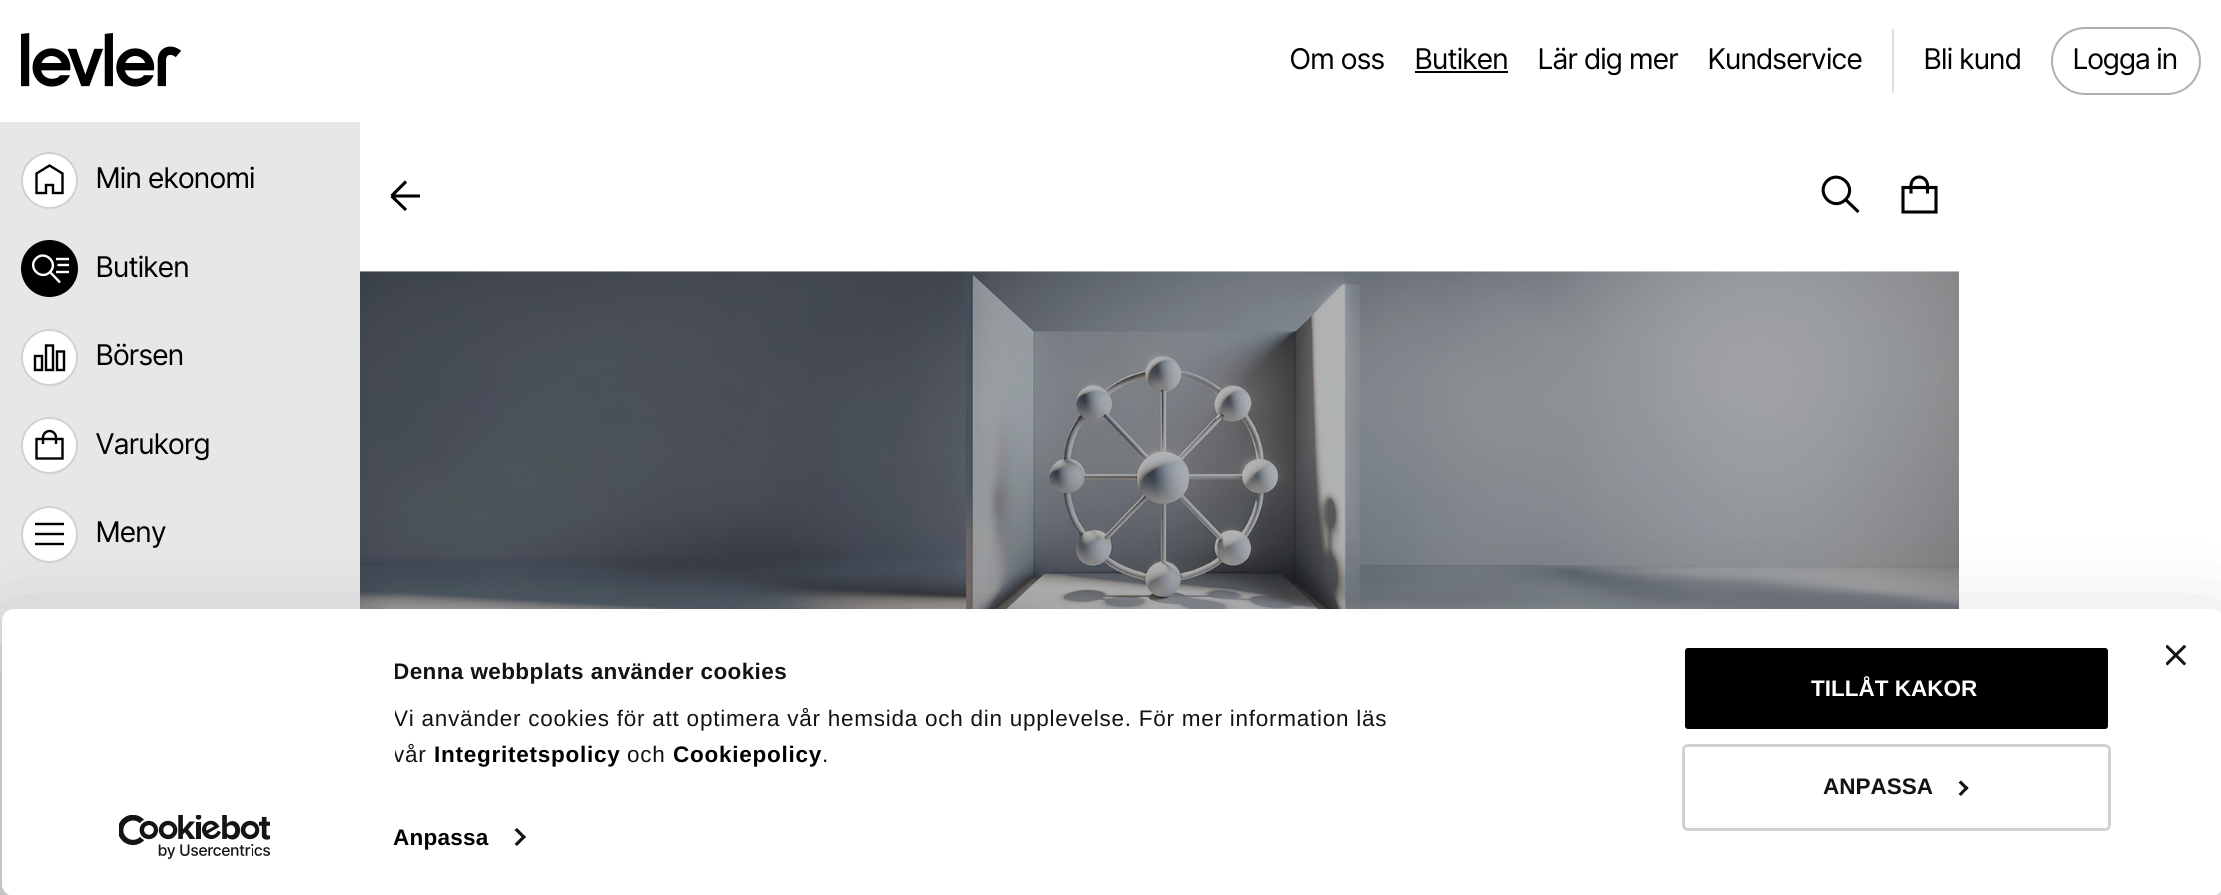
#include <cairo.h>
#include <math.h>
#include <stddef.h>


static void spaced_text(cairo_t *cr, double x, double y, const char *s, double letter, double word) {
    cairo_move_to(cr, x, y);
    while (*s) {
        char ch[5] = {0};
        int n = 0;
        do ch[n++] = *s++; while ((*s & 0xC0) == 0x80);
        cairo_show_text(cr, ch);
        cairo_rel_move_to(cr, letter + word * (*ch == ' '), 0);
    }
}

static void round_rect(cairo_t *cr, double x, double y, double w, double h, double r) {
    cairo_new_sub_path(cr);
    cairo_arc(cr, x + w - r, y + h - r, r, 0, M_PI / 2);
    cairo_arc(cr, x + r, y + h - r, r, M_PI / 2, M_PI);
    cairo_arc(cr, x + r, y + r, r, M_PI, 1.5 * M_PI);
    cairo_arc(cr, x + w - r, y + r, r, 1.5 * M_PI, 2 * M_PI);
    cairo_close_path(cr);
}

static void shadow(cairo_t *cr, double x, double y, double w, double h, double r, double blur, double alpha) {
    cairo_push_group_with_content(cr, CAIRO_CONTENT_ALPHA);
    cairo_set_operator(cr, CAIRO_OPERATOR_SOURCE);
    for (int i = 15; i >= -15 && fmin(w, h) + blur * i / 3 > 0; i -= 2) {
        double e = blur * i / 6;
        cairo_set_source_rgba(cr, 0, 0, 0, alpha * erfc((i - 1) / 8.5) / 2);
        round_rect(cr, x - e, y - e, w + 2 * e, h + 2 * e, fmax(0, fmin(r + e + blur * .6, fmin(w, h) / 2 + e)));
        cairo_fill(cr);
    }
    cairo_pattern_t *soft = cairo_pop_group(cr);
    cairo_mask(cr, soft);
    cairo_pattern_destroy(soft);
}

static void picture(cairo_t *cr, const char *path, double x, double y, double w, double h) {
    cairo_surface_t *image = cairo_image_surface_create_from_png(path);
    cairo_save(cr);
    cairo_set_source_surface(cr, image, x, y);
    cairo_rectangle(cr, x, y, w, h);
    cairo_fill(cr);
    cairo_restore(cr);
    cairo_surface_destroy(image);
}

int main(void) {
    cairo_surface_t *surface = cairo_image_surface_create(CAIRO_FORMAT_RGB24, 2221, 895);
    cairo_t *cr = cairo_create(surface);
    cairo_font_options_t *options = cairo_font_options_create();
    cairo_font_options_set_hint_metrics(options, CAIRO_HINT_METRICS_OFF);
    cairo_font_options_set_hint_style(options, CAIRO_HINT_STYLE_NONE);
    cairo_set_font_options(cr, options);
    cairo_set_miter_limit(cr, 4);
    cairo_set_source_rgb(cr, 1, 1, 1);
    cairo_paint(cr);
    picture(cr, "img1.png", 21, 33, 160, 54);
    cairo_select_font_face(cr, "Inter Tight", CAIRO_FONT_SLANT_NORMAL, CAIRO_FONT_WEIGHT_NORMAL);
    cairo_set_font_size(cr, 28.5);
    cairo_set_source_rgb(cr, 0, 0, 0);
    spaced_text(cr, 1290, 69, "Om oss", 0.25, 0);
    spaced_text(cr, 1415, 69, "Butiken", 0.25, 0);
    cairo_rectangle(cr, 1415, 71, 93, 2);
    cairo_fill(cr);
    spaced_text(cr, 1538, 69, "Lär dig mer", 0.25, 0);
    spaced_text(cr, 1708, 69, "Kundservice", 0.25, 0);
    cairo_set_source_rgb(cr, 0.878, 0.878, 0.878);
    cairo_rectangle(cr, 1892, 29, 2, 64);
    cairo_fill(cr);
    cairo_set_source_rgb(cr, 0, 0, 0);
    spaced_text(cr, 1924, 69, "Bli kund", 0.25, 0);
    round_rect(cr, 2052, 28, 148, 66, 33);
    cairo_set_source_rgb(cr, 0.69, 0.69, 0.69);
    cairo_stroke(cr);
    cairo_set_source_rgb(cr, 0, 0, 0);
    cairo_move_to(cr, 2073, 69);
    cairo_show_text(cr, "Logga in");
    cairo_set_source_rgb(cr, 0.906, 0.906, 0.906);
    cairo_rectangle(cr, 0, 122, 360, 773);
    cairo_fill(cr);
    cairo_set_source_rgb(cr, 1, 1, 1);
    cairo_arc(cr, 49.5, 180.5, 27.5, 0, 2 * M_PI);
    cairo_fill_preserve(cr);
    cairo_set_source_rgb(cr, 0.82, 0.82, 0.82);
    cairo_stroke(cr);
    cairo_new_path(cr);
    cairo_move_to(cr, 49.5, 165.5);
    cairo_line_to(cr, 62.5, 173.5);
    cairo_line_to(cr, 62.5, 193);
    cairo_line_to(cr, 53, 193);
    cairo_line_to(cr, 53, 185);
    cairo_line_to(cr, 46, 185);
    cairo_line_to(cr, 46, 193);
    cairo_line_to(cr, 36.5, 193);
    cairo_line_to(cr, 36.5, 173.5);
    cairo_close_path(cr);
    cairo_set_source_rgb(cr, 0, 0, 0);
    cairo_set_line_width(cr, 2.4);
    cairo_stroke(cr);
    spaced_text(cr, 96, 188, "Min ekonomi", 0.25, 0);
    cairo_new_path(cr);
    cairo_arc(cr, 49.5, 268.5, 28.5, 0, 2 * M_PI);
    cairo_fill(cr);
    cairo_new_path(cr);
    cairo_move_to(cr, 50, 272);
    cairo_curve_to(cr, 59, 263, 45, 249.5, 36, 258.5);
    cairo_curve_to(cr, 27, 267.5, 41, 281, 50, 272);
    cairo_close_path(cr);
    cairo_move_to(cr, 50, 272);
    cairo_line_to(cr, 60, 282.5);
    cairo_move_to(cr, 56, 259);
    cairo_line_to(cr, 69, 259);
    cairo_move_to(cr, 57.5, 265);
    cairo_line_to(cr, 69, 265);
    cairo_move_to(cr, 56, 272);
    cairo_line_to(cr, 69, 272);
    cairo_set_source_rgb(cr, 1, 1, 1);
    cairo_stroke(cr);
    cairo_set_source_rgb(cr, 0, 0, 0);
    spaced_text(cr, 96, 277, "Butiken", 0.25, 0);
    cairo_set_source_rgb(cr, 1, 1, 1);
    cairo_new_path(cr);
    cairo_arc(cr, 49.5, 357.5, 27.5, 0, 2 * M_PI);
    cairo_fill_preserve(cr);
    cairo_set_source_rgb(cr, 0.82, 0.82, 0.82);
    cairo_set_line_width(cr, 2);
    cairo_stroke(cr);
    cairo_new_path(cr);
    cairo_move_to(cr, 46, 345.5);
    cairo_line_to(cr, 53, 345.5);
    cairo_line_to(cr, 53, 370);
    cairo_line_to(cr, 46, 370);
    cairo_close_path(cr);
    cairo_move_to(cr, 57, 351.5);
    cairo_line_to(cr, 64, 351.5);
    cairo_line_to(cr, 64, 370);
    cairo_line_to(cr, 57, 370);
    cairo_close_path(cr);
    cairo_move_to(cr, 35, 356);
    cairo_line_to(cr, 42, 356);
    cairo_line_to(cr, 42, 370);
    cairo_line_to(cr, 35, 370);
    cairo_close_path(cr);
    cairo_set_source_rgb(cr, 0, 0, 0);
    cairo_set_line_width(cr, 2.4);
    cairo_stroke(cr);
    spaced_text(cr, 96, 365, "Börsen", 0.25, 0);
    cairo_set_source_rgb(cr, 1, 1, 1);
    cairo_new_path(cr);
    cairo_arc(cr, 49.5, 445.5, 27.5, 0, 2 * M_PI);
    cairo_fill_preserve(cr);
    cairo_set_source_rgb(cr, 0.82, 0.82, 0.82);
    cairo_set_line_width(cr, 2);
    cairo_stroke(cr);
    cairo_new_path(cr);
    cairo_move_to(cr, 56, 444);
    cairo_line_to(cr, 56, 437.5);
    cairo_curve_to(cr, 56, 434, 53, 431, 49.5, 431);
    cairo_curve_to(cr, 46, 431, 43, 434, 43, 437.5);
    cairo_line_to(cr, 43, 444);
    cairo_move_to(cr, 36.5, 439);
    cairo_line_to(cr, 62.5, 439);
    cairo_line_to(cr, 62.5, 458.5);
    cairo_line_to(cr, 36.5, 458.5);
    cairo_close_path(cr);
    cairo_set_source_rgb(cr, 0, 0, 0);
    cairo_set_line_width(cr, 2.4);
    cairo_stroke(cr);
    spaced_text(cr, 96, 454, "Varukorg", 0.25, 0);
    cairo_set_source_rgb(cr, 1, 1, 1);
    cairo_new_path(cr);
    cairo_arc(cr, 49.5, 534.5, 27.5, 0, 2 * M_PI);
    cairo_fill_preserve(cr);
    cairo_set_source_rgb(cr, 0.82, 0.82, 0.82);
    cairo_set_line_width(cr, 2);
    cairo_stroke(cr);
    cairo_new_path(cr);
    cairo_move_to(cr, 35, 534);
    cairo_line_to(cr, 64, 534);
    cairo_move_to(cr, 35, 524);
    cairo_line_to(cr, 64, 524);
    cairo_move_to(cr, 35, 544);
    cairo_line_to(cr, 64, 544);
    cairo_set_source_rgb(cr, 0, 0, 0);
    cairo_set_line_width(cr, 2.4);
    cairo_stroke(cr);
    spaced_text(cr, 96, 542, "Meny", 0.25, 0);
    cairo_new_path(cr);
    cairo_move_to(cr, 420, 196);
    cairo_line_to(cr, 391.5, 196);
    cairo_move_to(cr, 391.5, 196);
    cairo_line_to(cr, 406, 210);
    cairo_move_to(cr, 391.5, 196);
    cairo_line_to(cr, 406, 181.5);
    cairo_set_line_width(cr, 3.1);
    cairo_stroke(cr);
    cairo_new_path(cr);
    cairo_move_to(cr, 1845.5, 199.5);
    cairo_curve_to(cr, 1858, 187.5, 1839.5, 169, 1827, 181);
    cairo_curve_to(cr, 1815, 193.5, 1833.5, 212, 1845.5, 199.5);
    cairo_close_path(cr);
    cairo_move_to(cr, 1845.5, 199.5);
    cairo_line_to(cr, 1858.5, 212);
    cairo_stroke(cr);
    cairo_new_path(cr);
    cairo_move_to(cr, 1927.5, 193.5);
    cairo_line_to(cr, 1927.5, 185.5);
    cairo_curve_to(cr, 1927.5, 181, 1924, 177, 1919, 177);
    cairo_curve_to(cr, 1914.5, 177, 1911, 181, 1911, 185.5);
    cairo_line_to(cr, 1911, 193.5);
    cairo_move_to(cr, 1903, 187.5);
    cairo_line_to(cr, 1936, 187.5);
    cairo_line_to(cr, 1936, 212);
    cairo_line_to(cr, 1903, 212);
    cairo_close_path(cr);
    cairo_stroke(cr);
    picture(cr, "img2.png", 360, 271, 1599, 338);
    cairo_save(cr);
    cairo_set_fill_rule(cr, CAIRO_FILL_RULE_EVEN_ODD);
    cairo_new_path(cr);
    cairo_move_to(cr, 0, 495);
    cairo_line_to(cr, 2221, 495);
    cairo_line_to(cr, 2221, 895);
    cairo_line_to(cr, 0, 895);
    cairo_close_path(cr);
    cairo_move_to(cr, 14, 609);
    cairo_line_to(cr, 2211, 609);
    cairo_curve_to(cr, 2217.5, 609, 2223, 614.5, 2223, 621);
    cairo_line_to(cr, 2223, 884);
    cairo_curve_to(cr, 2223, 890.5, 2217.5, 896, 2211, 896);
    cairo_line_to(cr, 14, 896);
    cairo_curve_to(cr, 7.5, 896, 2, 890.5, 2, 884);
    cairo_line_to(cr, 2, 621);
    cairo_curve_to(cr, 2, 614.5, 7.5, 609, 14, 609);
    cairo_close_path(cr);
    cairo_clip(cr);
    cairo_set_source_rgb(cr, 0, 0, 0);
    shadow(cr, 2, 654, 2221, 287, 12, 52.5, 0.3);
    cairo_restore(cr);
    cairo_set_source_rgb(cr, 1, 1, 1);
    round_rect(cr, 2, 609, 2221, 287, 12);
    cairo_fill(cr);
    picture(cr, "img3.png", 2166, 645, 21, 21);
    cairo_save(cr);
    cairo_rectangle(cr, 395, 654, 1278, 119);
    cairo_clip(cr);
    cairo_select_font_face(cr, "Liberation Sans", CAIRO_FONT_SLANT_NORMAL, CAIRO_FONT_WEIGHT_BOLD);
    cairo_set_font_size(cr, 22.5);
    cairo_set_source_rgb(cr, 0.078, 0.078, 0.078);
    spaced_text(cr, 393, 679, "Denna webbplats använder cookies", 0.4, 0);
    cairo_select_font_face(cr, "Liberation Sans", CAIRO_FONT_SLANT_NORMAL, CAIRO_FONT_WEIGHT_NORMAL);
    spaced_text(cr, 393, 726, "Vi använder cookies för att optimera vår hemsida och din upplevelse. För mer information läs", 0.75, 0);
    spaced_text(cr, 393, 762, "vår", 0.75, 0);
    cairo_restore(cr);
    cairo_select_font_face(cr, "Liberation Sans", CAIRO_FONT_SLANT_NORMAL, CAIRO_FONT_WEIGHT_BOLD);
    cairo_set_font_size(cr, 22.5);
    cairo_set_source_rgb(cr, 0, 0, 0);
    spaced_text(cr, 434, 762, "Integritetspolicy", 0.75, 0);
    cairo_select_font_face(cr, "Liberation Sans", CAIRO_FONT_SLANT_NORMAL, CAIRO_FONT_WEIGHT_NORMAL);
    cairo_set_source_rgb(cr, 0.078, 0.078, 0.078);
    spaced_text(cr, 627, 762, "och", 0.75, 0);
    cairo_select_font_face(cr, "Liberation Sans", CAIRO_FONT_SLANT_NORMAL, CAIRO_FONT_WEIGHT_BOLD);
    cairo_set_source_rgb(cr, 0, 0, 0);
    spaced_text(cr, 673, 762, "Cookiepolicy", 0.75, 0);
    cairo_select_font_face(cr, "Liberation Sans", CAIRO_FONT_SLANT_NORMAL, CAIRO_FONT_WEIGHT_NORMAL);
    cairo_set_source_rgb(cr, 0.078, 0.078, 0.078);
    spaced_text(cr, 822, 762, ".", 0.75, 0);
    cairo_select_font_face(cr, "Liberation Sans", CAIRO_FONT_SLANT_NORMAL, CAIRO_FONT_WEIGHT_BOLD);
    cairo_set_source_rgb(cr, 0, 0, 0);
    spaced_text(cr, 393, 845, "Anpassa", 0.25, 0);
    cairo_set_source_rgb(cr, 0.078, 0.078, 0.078);
    cairo_new_path(cr);
    cairo_move_to(cr, 517, 828);
    cairo_line_to(cr, 526, 837);
    cairo_line_to(cr, 523.5, 839);
    cairo_line_to(cr, 514.5, 830);
    cairo_close_path(cr);
    cairo_fill(cr);
    cairo_new_path(cr);
    cairo_move_to(cr, 523.5, 835);
    cairo_line_to(cr, 526, 837);
    cairo_line_to(cr, 517, 846);
    cairo_line_to(cr, 514.5, 844);
    cairo_close_path(cr);
    cairo_fill(cr);
    cairo_set_source_rgb(cr, 0, 0, 0);
    round_rect(cr, 1683.5, 646.5, 426, 84, 4.5);
    cairo_fill_preserve(cr);
    cairo_set_source_rgb(cr, 1, 1, 1);
    cairo_set_line_width(cr, 3);
    cairo_stroke(cr);
    cairo_move_to(cr, 1811, 696);
    cairo_show_text(cr, "TILLÅT KAKOR");
    round_rect(cr, 1683.5, 745.5, 426, 84, 4.5);
    cairo_set_source_rgb(cr, 0.824, 0.824, 0.824);
    cairo_stroke(cr);
    cairo_set_source_rgb(cr, 0.078, 0.078, 0.078);
    cairo_move_to(cr, 1823, 794);
    cairo_show_text(cr, "ANPASSA");
    cairo_new_path(cr);
    cairo_move_to(cr, 1961, 780.5);
    cairo_line_to(cr, 1968.5, 788);
    cairo_line_to(cr, 1966.5, 790.5);
    cairo_line_to(cr, 1958.5, 782.5);
    cairo_close_path(cr);
    cairo_fill(cr);
    cairo_new_path(cr);
    cairo_move_to(cr, 1966.5, 786);
    cairo_line_to(cr, 1968.5, 788);
    cairo_line_to(cr, 1961, 796);
    cairo_line_to(cr, 1958.5, 794);
    cairo_close_path(cr);
    cairo_fill(cr);
    picture(cr, "img4.png", 119, 815, 151, 44);
    cairo_surface_write_to_png(surface, "page.png");
    cairo_font_options_destroy(options);
    cairo_destroy(cr);
    cairo_surface_destroy(surface);
    return 0;
}
